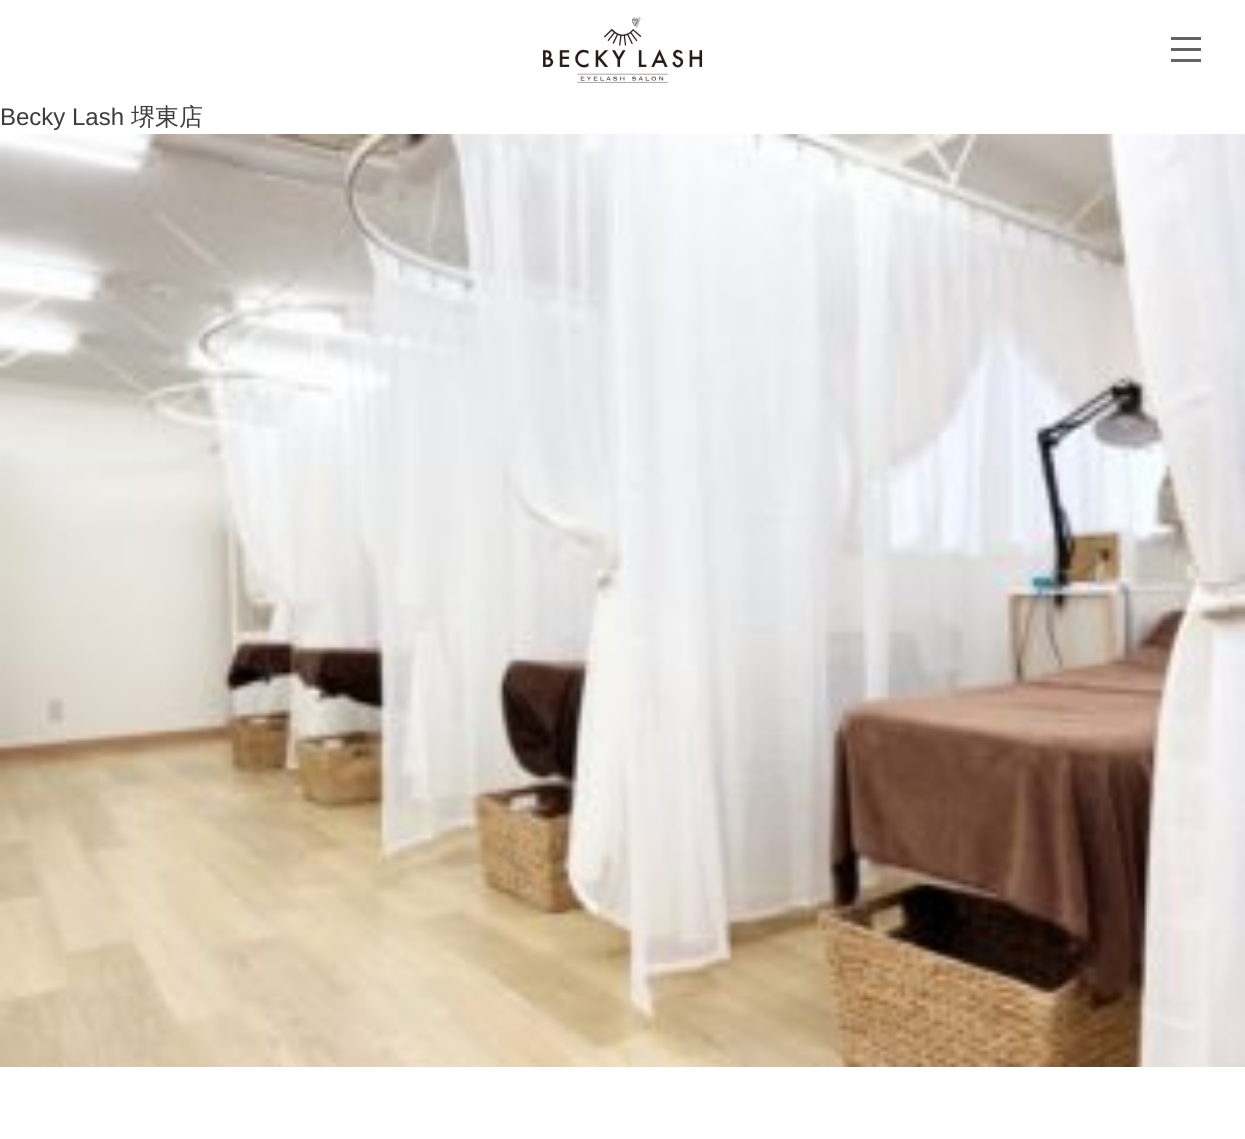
#include <cairo.h>
#include <math.h>
#include <stddef.h>


static void picture(cairo_t *cr, const char *path, double x, double y, double w, double h) {
    cairo_surface_t *image = cairo_image_surface_create_from_png(path);
    cairo_save(cr);
    cairo_set_source_surface(cr, image, x, y);
    cairo_rectangle(cr, x, y, w, h);
    cairo_fill(cr);
    cairo_restore(cr);
    cairo_surface_destroy(image);
}

int main(void) {
    cairo_surface_t *surface = cairo_image_surface_create(CAIRO_FORMAT_RGB24, 1245, 1139);
    cairo_t *cr = cairo_create(surface);
    cairo_font_options_t *options = cairo_font_options_create();
    cairo_font_options_set_hint_metrics(options, CAIRO_HINT_METRICS_OFF);
    cairo_font_options_set_hint_style(options, CAIRO_HINT_STYLE_NONE);
    cairo_set_font_options(cr, options);
    cairo_set_miter_limit(cr, 4);
    cairo_set_source_rgb(cr, 1, 1, 1);
    cairo_paint(cr);
    picture(cr, "img1.png", 543, 16, 160, 67);
    cairo_set_source_rgb(cr, 0.388, 0.388, 0.388);
    cairo_rectangle(cr, 1171, 37, 30, 3);
    cairo_fill(cr);
    cairo_rectangle(cr, 1171, 48, 30, 3);
    cairo_fill(cr);
    cairo_rectangle(cr, 1171, 59, 30, 3);
    cairo_fill(cr);
    cairo_select_font_face(cr, "Liberation Sans", CAIRO_FONT_SLANT_NORMAL, CAIRO_FONT_WEIGHT_NORMAL);
    cairo_set_font_size(cr, 24);
    cairo_set_source_rgb(cr, 0.235, 0.235, 0.235);
    cairo_move_to(cr, 0, 125);
    cairo_show_text(cr, "Becky Lash");
    cairo_select_font_face(cr, "WenQuanYi Zen Hei Medium", CAIRO_FONT_SLANT_NORMAL, CAIRO_FONT_WEIGHT_NORMAL);
    cairo_move_to(cr, 131, 125);
    cairo_show_text(cr, "堺東店");
    picture(cr, "img2.png", 0, 134, 1245, 933);
    cairo_surface_write_to_png(surface, "page.png");
    cairo_font_options_destroy(options);
    cairo_destroy(cr);
    cairo_surface_destroy(surface);
    return 0;
}
